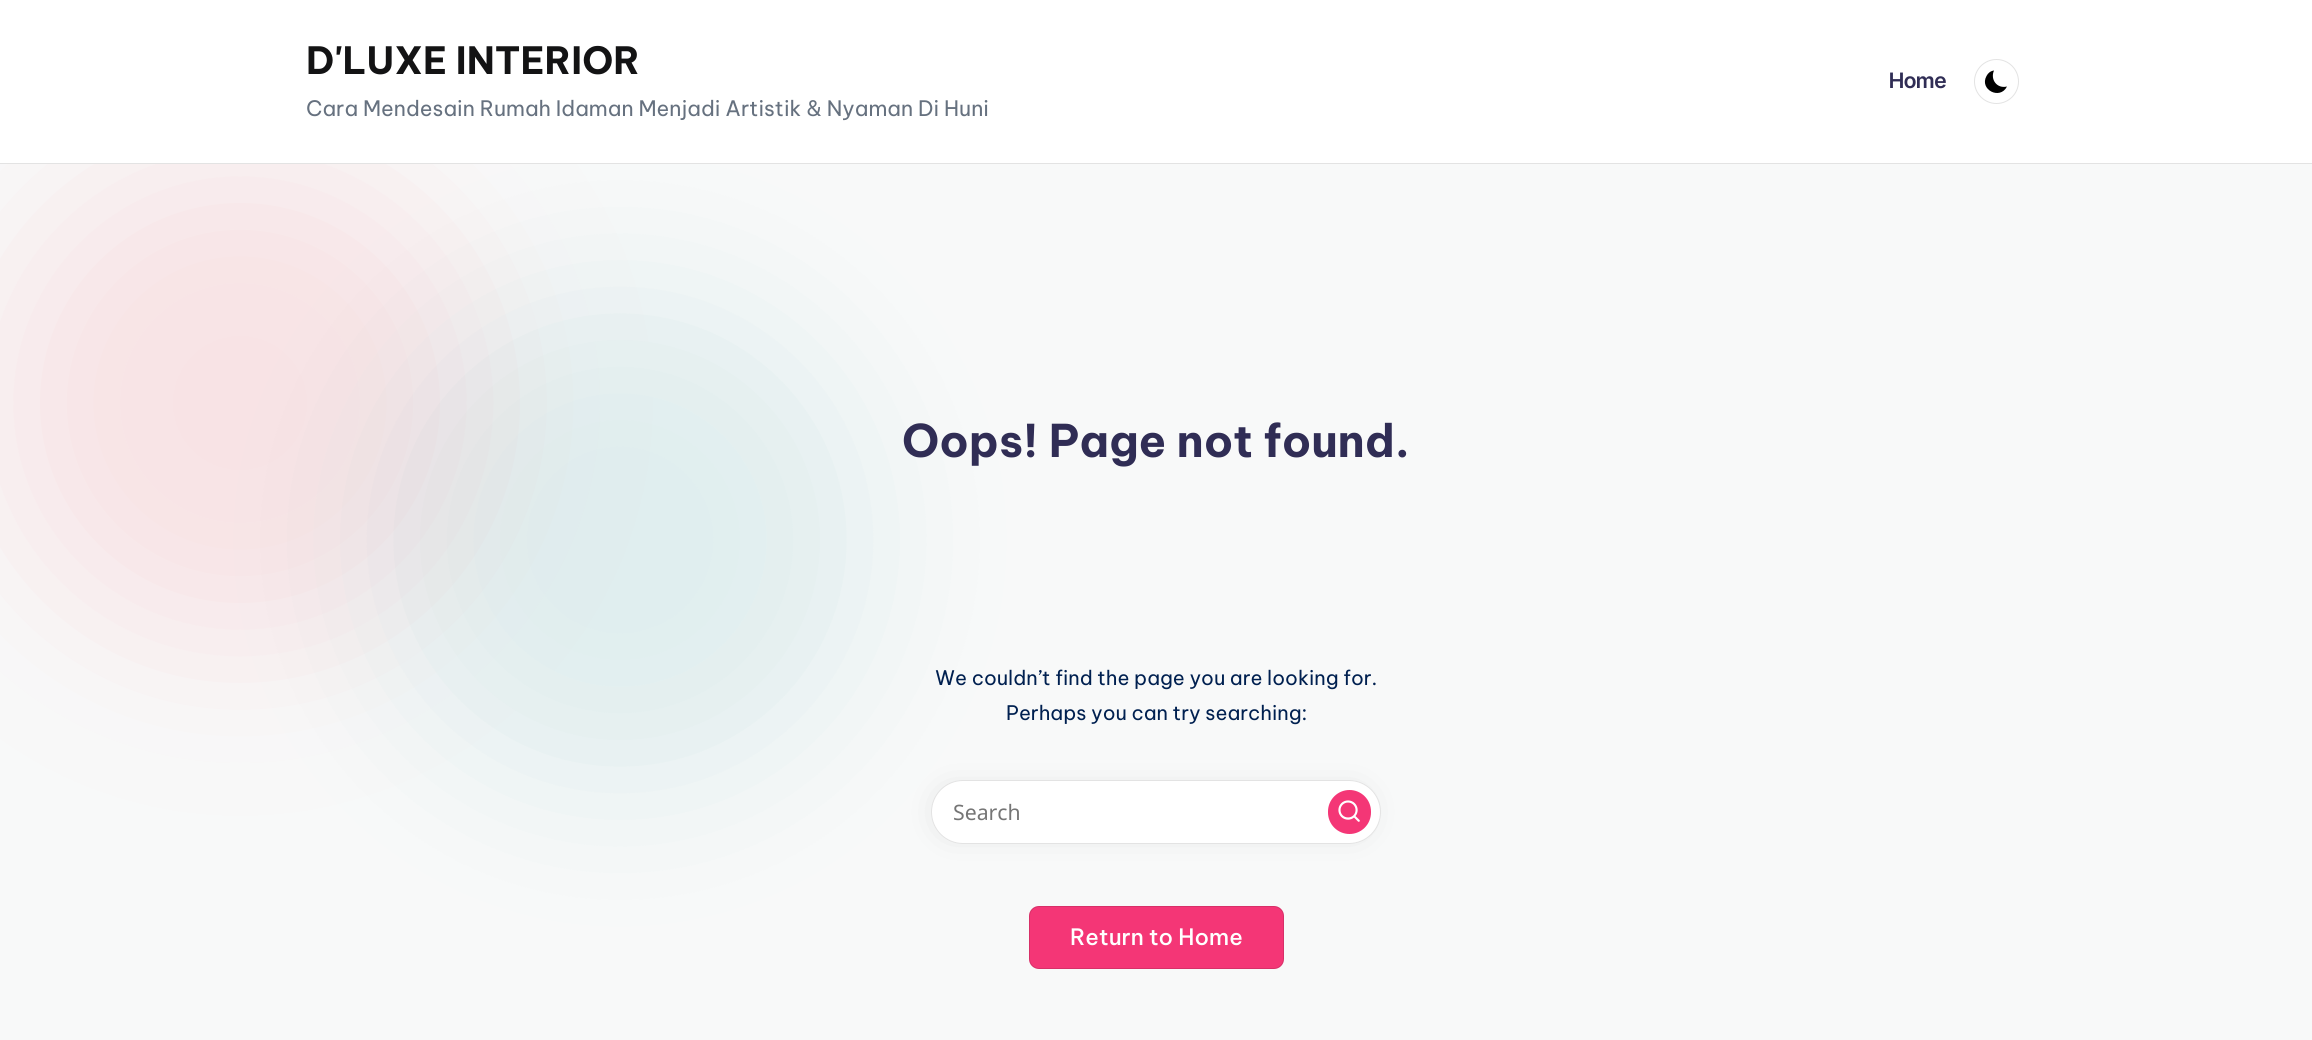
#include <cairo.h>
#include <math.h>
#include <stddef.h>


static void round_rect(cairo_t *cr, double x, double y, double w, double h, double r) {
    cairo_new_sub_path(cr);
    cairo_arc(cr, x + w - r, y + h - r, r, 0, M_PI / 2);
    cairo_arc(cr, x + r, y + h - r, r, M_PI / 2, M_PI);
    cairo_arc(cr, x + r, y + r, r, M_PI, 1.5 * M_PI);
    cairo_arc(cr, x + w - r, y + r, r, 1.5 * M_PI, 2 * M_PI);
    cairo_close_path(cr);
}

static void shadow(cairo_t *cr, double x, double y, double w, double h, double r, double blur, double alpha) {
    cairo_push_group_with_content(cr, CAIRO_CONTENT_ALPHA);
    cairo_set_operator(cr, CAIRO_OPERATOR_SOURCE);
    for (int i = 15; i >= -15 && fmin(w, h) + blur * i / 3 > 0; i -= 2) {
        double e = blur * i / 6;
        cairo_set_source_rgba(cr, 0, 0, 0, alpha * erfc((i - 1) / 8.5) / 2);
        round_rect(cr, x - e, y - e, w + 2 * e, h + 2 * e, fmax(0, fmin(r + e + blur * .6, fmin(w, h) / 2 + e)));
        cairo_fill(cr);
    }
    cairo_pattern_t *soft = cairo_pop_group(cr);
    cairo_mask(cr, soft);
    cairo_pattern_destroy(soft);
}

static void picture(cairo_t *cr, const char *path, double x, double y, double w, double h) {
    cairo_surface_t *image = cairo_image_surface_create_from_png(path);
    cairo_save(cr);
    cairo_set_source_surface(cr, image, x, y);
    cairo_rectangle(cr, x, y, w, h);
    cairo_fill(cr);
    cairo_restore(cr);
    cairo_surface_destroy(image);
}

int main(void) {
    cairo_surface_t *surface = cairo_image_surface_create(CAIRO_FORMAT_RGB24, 2312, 1040);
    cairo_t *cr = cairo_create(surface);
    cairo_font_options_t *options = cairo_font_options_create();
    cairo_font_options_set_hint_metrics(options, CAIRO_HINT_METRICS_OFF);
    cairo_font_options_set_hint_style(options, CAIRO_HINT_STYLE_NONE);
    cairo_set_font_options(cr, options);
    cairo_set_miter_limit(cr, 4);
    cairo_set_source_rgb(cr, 0.969, 0.973, 0.976);
    cairo_paint(cr);
    cairo_set_source_rgb(cr, 0.969, 0.89, 0.898);
    shadow(cr, 0, 163, 480, 480, 240, 80, 1);
    cairo_set_source_rgb(cr, 0.016, 0.525, 0.545);
    shadow(cr, 380, 300, 480, 480, 240, 80, 0.1);
    cairo_set_source_rgb(cr, 1, 1, 1);
    cairo_rectangle(cr, 0, 0, 2312, 163);
    cairo_fill(cr);
    cairo_set_source_rgb(cr, 0.89, 0.89, 0.89);
    cairo_rectangle(cr, 0, 163, 2312, 1);
    cairo_fill(cr);
    cairo_select_font_face(cr, "Be Vietnam Pro", CAIRO_FONT_SLANT_NORMAL, CAIRO_FONT_WEIGHT_BOLD);
    cairo_set_font_size(cr, 37.5);
    cairo_set_source_rgb(cr, 0.075, 0.075, 0.082);
    cairo_move_to(cr, 306, 74);
    cairo_show_text(cr, "D'LUXE INTERIOR");
    cairo_select_font_face(cr, "Be Vietnam Pro", CAIRO_FONT_SLANT_NORMAL, CAIRO_FONT_WEIGHT_NORMAL);
    cairo_set_font_size(cr, 21.25);
    cairo_set_source_rgb(cr, 0.4, 0.443, 0.498);
    cairo_move_to(cr, 306, 116);
    cairo_show_text(cr, "Cara Mendesain Rumah Idaman Menjadi Artistik & Nyaman Di Huni");
    cairo_select_font_face(cr, "Inter Tight SemiBold", CAIRO_FONT_SLANT_NORMAL, CAIRO_FONT_WEIGHT_NORMAL);
    cairo_set_source_rgb(cr, 0.188, 0.176, 0.333);
    cairo_move_to(cr, 1889, 88);
    cairo_show_text(cr, "Home");
    cairo_new_path(cr);
    cairo_arc(cr, 1996.5, 81.5, 22, 0, 2 * M_PI);
    cairo_set_source_rgb(cr, 0.89, 0.89, 0.89);
    cairo_set_line_width(cr, 1);
    cairo_stroke(cr);
    cairo_set_source_rgb(cr, 0, 0, 0);
    cairo_new_path(cr);
    cairo_move_to(cr, 2007, 86.5);
    cairo_curve_to(cr, 1997, 89, 1990, 79.5, 1994, 70.5);
    cairo_curve_to(cr, 1990.5, 71, 1988, 73, 1986.5, 76);
    cairo_curve_to(cr, 1979, 89.5, 2000, 100.5, 2007, 86.5);
    cairo_close_path(cr);
    cairo_fill(cr);
    cairo_select_font_face(cr, "Be Vietnam Pro", CAIRO_FONT_SLANT_NORMAL, CAIRO_FONT_WEIGHT_BOLD);
    cairo_set_font_size(cr, 45);
    cairo_set_source_rgb(cr, 0.188, 0.176, 0.333);
    cairo_move_to(cr, 902, 457);
    cairo_show_text(cr, "Oops! Page not found.");
    cairo_select_font_face(cr, "Be Vietnam Pro", CAIRO_FONT_SLANT_NORMAL, CAIRO_FONT_WEIGHT_NORMAL);
    cairo_set_font_size(cr, 20);
    cairo_set_source_rgb(cr, 0, 0.125, 0.314);
    cairo_move_to(cr, 935, 685);
    cairo_show_text(cr, "We couldn’t find the page you are looking for.");
    cairo_move_to(cr, 1006, 720);
    cairo_show_text(cr, "Perhaps you can try searching:");
    cairo_set_source_rgb(cr, 0, 0, 0);
    shadow(cr, 948, 800, 410, 24, 12, 20, 0.15);
    cairo_set_source_rgb(cr, 1, 1, 1);
    round_rect(cr, 931, 780, 450, 64, 32);
    cairo_fill(cr);
    round_rect(cr, 931.5, 780.5, 449, 63, 31.5);
    cairo_set_source_rgba(cr, 0.725, 0.725, 0.725, 0.4);
    cairo_stroke(cr);
    cairo_select_font_face(cr, "Noto Sans", CAIRO_FONT_SLANT_NORMAL, CAIRO_FONT_WEIGHT_NORMAL);
    cairo_set_font_size(cr, 21.25);
    cairo_set_source_rgb(cr, 0.459, 0.459, 0.459);
    cairo_move_to(cr, 953, 820);
    cairo_show_text(cr, "Search");
    cairo_set_source_rgb(cr, 0.957, 0.212, 0.463);
    round_rect(cr, 1328, 790, 43, 44, 21.5);
    cairo_fill(cr);
    picture(cr, "img1.png", 1338, 800, 22, 22);
    round_rect(cr, 1029, 906, 255, 63, 10);
    cairo_fill(cr);
    round_rect(cr, 1029.5, 906.5, 254, 62, 9.5);
    cairo_set_source_rgba(cr, 0, 0, 0, 0.12);
    cairo_stroke(cr);
    cairo_select_font_face(cr, "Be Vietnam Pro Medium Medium", CAIRO_FONT_SLANT_NORMAL, CAIRO_FONT_WEIGHT_NORMAL);
    cairo_set_font_size(cr, 22.5);
    cairo_set_source_rgb(cr, 1, 1, 1);
    cairo_move_to(cr, 1070, 945);
    cairo_show_text(cr, "Return to Home");
    cairo_surface_write_to_png(surface, "page.png");
    cairo_font_options_destroy(options);
    cairo_destroy(cr);
    cairo_surface_destroy(surface);
    return 0;
}
